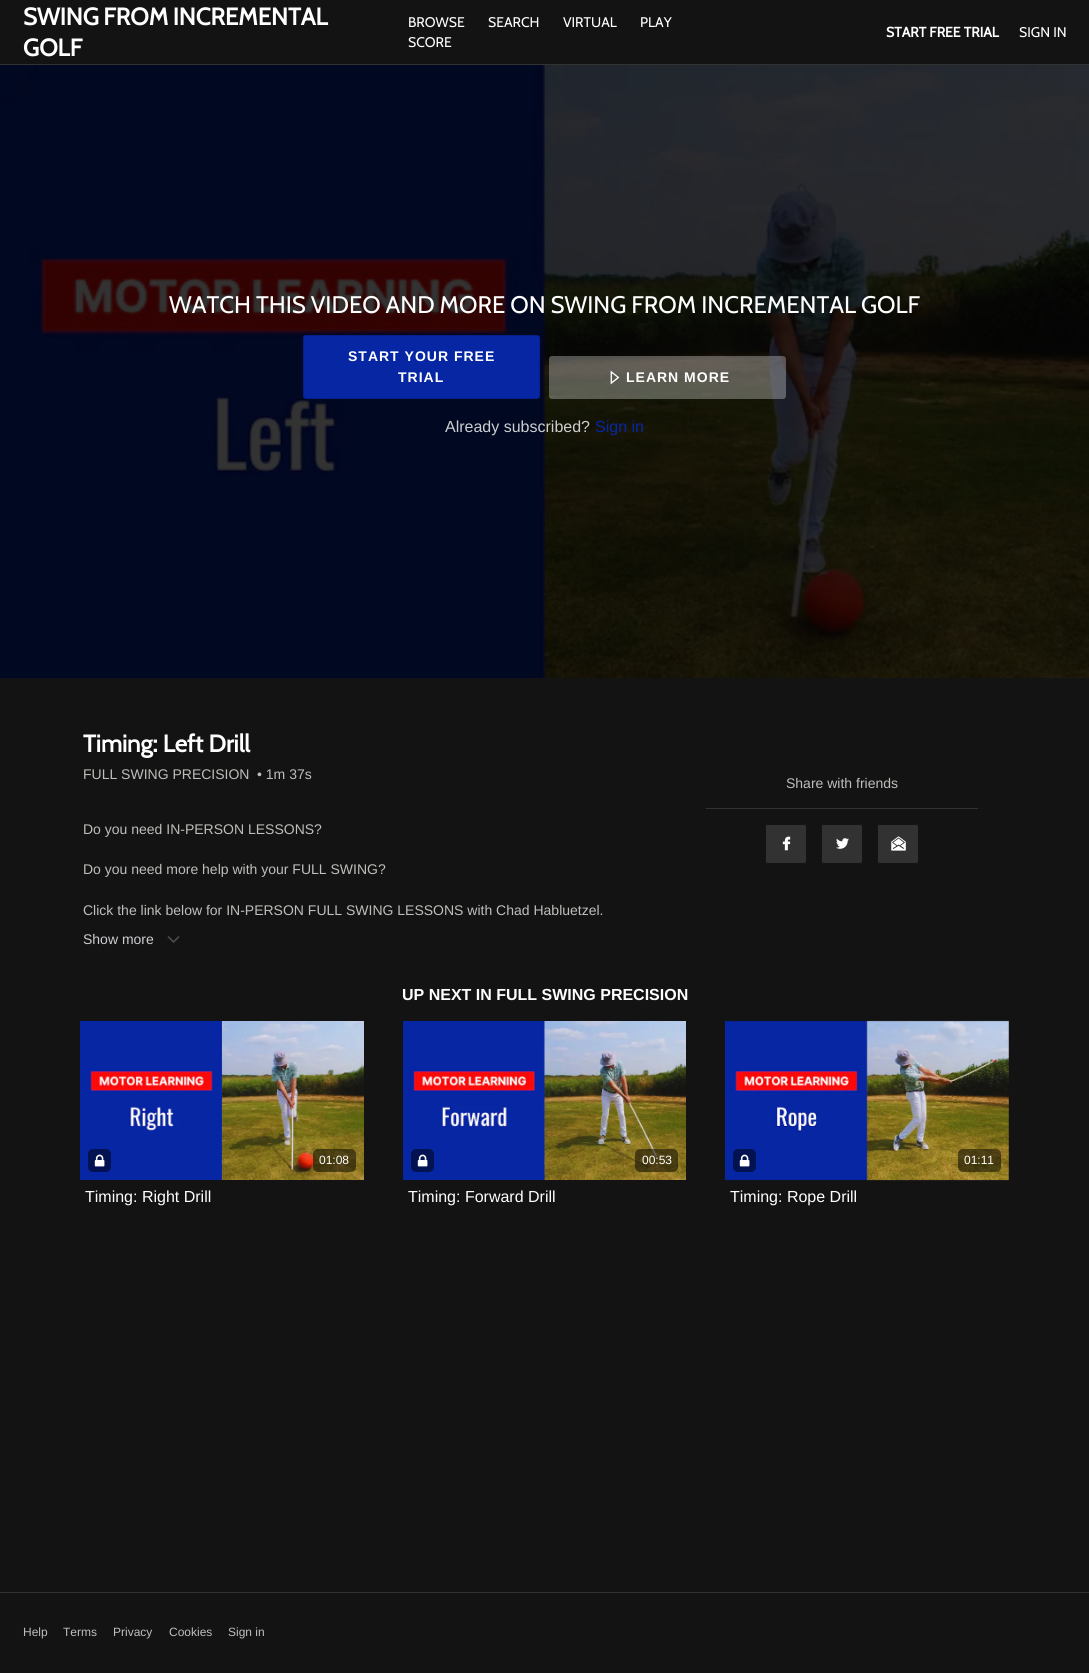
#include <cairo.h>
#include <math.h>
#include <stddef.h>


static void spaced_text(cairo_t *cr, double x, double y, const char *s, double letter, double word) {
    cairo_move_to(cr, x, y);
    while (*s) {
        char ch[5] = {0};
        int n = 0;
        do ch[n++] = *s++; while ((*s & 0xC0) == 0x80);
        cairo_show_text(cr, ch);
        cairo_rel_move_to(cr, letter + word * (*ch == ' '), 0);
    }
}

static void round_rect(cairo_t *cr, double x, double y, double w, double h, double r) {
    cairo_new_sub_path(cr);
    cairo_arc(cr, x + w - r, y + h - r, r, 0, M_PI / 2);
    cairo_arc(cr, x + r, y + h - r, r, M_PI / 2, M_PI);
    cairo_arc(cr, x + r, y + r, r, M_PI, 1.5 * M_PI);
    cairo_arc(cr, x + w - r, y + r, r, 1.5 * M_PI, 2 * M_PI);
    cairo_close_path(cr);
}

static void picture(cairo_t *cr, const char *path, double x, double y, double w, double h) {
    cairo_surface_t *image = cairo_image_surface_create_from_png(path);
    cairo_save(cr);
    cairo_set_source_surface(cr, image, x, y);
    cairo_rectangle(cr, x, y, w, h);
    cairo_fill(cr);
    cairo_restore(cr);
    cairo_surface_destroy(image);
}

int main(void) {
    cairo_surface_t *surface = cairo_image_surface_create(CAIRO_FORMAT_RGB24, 1089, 1673);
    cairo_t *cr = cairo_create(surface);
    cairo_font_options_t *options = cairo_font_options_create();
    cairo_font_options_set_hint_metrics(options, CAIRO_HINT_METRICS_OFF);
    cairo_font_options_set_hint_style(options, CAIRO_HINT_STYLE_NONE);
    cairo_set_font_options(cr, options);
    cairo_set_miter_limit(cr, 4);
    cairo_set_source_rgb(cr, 0.078, 0.078, 0.078);
    cairo_paint(cr);
    cairo_set_source_rgb(cr, 0.196, 0.196, 0.196);
    cairo_rectangle(cr, 0, 64, 1089, 1);
    cairo_fill(cr);
    cairo_select_font_face(cr, "Cabin", CAIRO_FONT_SLANT_NORMAL, CAIRO_FONT_WEIGHT_BOLD);
    cairo_set_font_size(cr, 24);
    cairo_set_source_rgb(cr, 1, 1, 1);
    spaced_text(cr, 23, 25, "SWING FROM INCREMENTAL", 0, -1);
    cairo_move_to(cr, 23, 56);
    cairo_show_text(cr, "GOLF");
    cairo_select_font_face(cr, "Cabin", CAIRO_FONT_SLANT_NORMAL, CAIRO_FONT_WEIGHT_NORMAL);
    cairo_set_font_size(cr, 14);
    cairo_move_to(cr, 408, 27);
    cairo_show_text(cr, "BROWSE");
    cairo_move_to(cr, 488, 27);
    cairo_show_text(cr, "SEARCH");
    cairo_move_to(cr, 563, 27);
    cairo_show_text(cr, "VIRTUAL");
    cairo_move_to(cr, 640, 27);
    cairo_show_text(cr, "PLAY");
    cairo_move_to(cr, 408, 47);
    cairo_show_text(cr, "SCORE");
    cairo_select_font_face(cr, "Cabin", CAIRO_FONT_SLANT_NORMAL, CAIRO_FONT_WEIGHT_BOLD);
    cairo_move_to(cr, 886, 37);
    cairo_show_text(cr, "START FREE TRIAL");
    cairo_select_font_face(cr, "Cabin", CAIRO_FONT_SLANT_NORMAL, CAIRO_FONT_WEIGHT_NORMAL);
    cairo_move_to(cr, 1019, 37);
    cairo_show_text(cr, "SIGN IN");
    picture(cr, "img1.png", 0, 65, 1089, 613);
    cairo_set_font_size(cr, 24);
    spaced_text(cr, 169, 313, "WATCH THIS VIDEO AND MORE ON SWING FROM INCREMENTAL GOLF", 0, -0.5);
    cairo_set_source_rgb(cr, 0.027, 0.149, 0.643);
    round_rect(cr, 303.5, 335.5, 236, 63, 2.5);
    cairo_fill_preserve(cr);
    cairo_set_source_rgb(cr, 0.024, 0.125, 0.545);
    cairo_set_line_width(cr, 1);
    cairo_stroke(cr);
    cairo_select_font_face(cr, "Liberation Sans", CAIRO_FONT_SLANT_NORMAL, CAIRO_FONT_WEIGHT_BOLD);
    cairo_set_font_size(cr, 14);
    cairo_set_source_rgb(cr, 1, 1, 1);
    spaced_text(cr, 348, 361, "START YOUR FREE", 1, 0);
    spaced_text(cr, 398, 382, "TRIAL", 1, 0);
    cairo_set_source_rgba(cr, 1, 1, 1, 0.3);
    round_rect(cr, 549, 356, 237, 43, 3);
    cairo_fill(cr);
    picture(cr, "img2.png", 610, 370, 10, 15);
    cairo_set_source_rgb(cr, 1, 1, 1);
    spaced_text(cr, 626, 382, "LEARN MORE", 1, 0);
    cairo_select_font_face(cr, "Liberation Sans", CAIRO_FONT_SLANT_NORMAL, CAIRO_FONT_WEIGHT_NORMAL);
    cairo_set_font_size(cr, 16);
    cairo_set_source_rgb(cr, 0.804, 0.808, 0.82);
    cairo_move_to(cr, 445, 432);
    cairo_show_text(cr, "Already subscribed?");
    cairo_set_source_rgb(cr, 0.027, 0.149, 0.643);
    cairo_move_to(cr, 595, 432);
    cairo_show_text(cr, "Sign in");
    cairo_select_font_face(cr, "Cabin", CAIRO_FONT_SLANT_NORMAL, CAIRO_FONT_WEIGHT_BOLD);
    cairo_set_font_size(cr, 24);
    cairo_set_source_rgb(cr, 1, 1, 1);
    cairo_move_to(cr, 83, 752);
    cairo_show_text(cr, "Timing: Left Drill");
    cairo_select_font_face(cr, "Liberation Sans", CAIRO_FONT_SLANT_NORMAL, CAIRO_FONT_WEIGHT_NORMAL);
    cairo_set_font_size(cr, 14);
    cairo_set_source_rgb(cr, 0.745, 0.745, 0.733);
    cairo_move_to(cr, 83, 779);
    cairo_show_text(cr, "FULL SWING PRECISION");
    cairo_move_to(cr, 257, 779);
    cairo_show_text(cr, "• 1m 37s");
    cairo_move_to(cr, 83, 834);
    cairo_show_text(cr, "Do you need IN-PERSON LESSONS?");
    cairo_move_to(cr, 83, 874);
    cairo_show_text(cr, "Do you need more help with your FULL SWING?");
    cairo_move_to(cr, 83, 915);
    cairo_show_text(cr, "Click the link below for IN-PERSON FULL SWING LESSONS with Chad Habluetzel.");
    cairo_set_source_rgb(cr, 0.804, 0.808, 0.82);
    cairo_move_to(cr, 83, 944);
    cairo_show_text(cr, "Show more");
    picture(cr, "img3.png", 167, 936, 13, 7);
    cairo_set_source_rgb(cr, 0.196, 0.196, 0.196);
    cairo_rectangle(cr, 706, 808, 272, 1);
    cairo_fill(cr);
    cairo_set_source_rgb(cr, 0.745, 0.745, 0.733);
    cairo_move_to(cr, 786, 788);
    cairo_show_text(cr, "Share with friends");
    cairo_set_source_rgb(cr, 0.196, 0.196, 0.196);
    round_rect(cr, 765, 824, 42, 40, 3);
    cairo_fill(cr);
    picture(cr, "img4.png", 782, 836, 9, 15);
    round_rect(cr, 765.5, 824.5, 41, 39, 2.5);
    cairo_set_source_rgb(cr, 0.078, 0.078, 0.078);
    cairo_stroke(cr);
    cairo_set_source_rgb(cr, 0.196, 0.196, 0.196);
    round_rect(cr, 821, 824, 42, 40, 3);
    cairo_fill(cr);
    picture(cr, "img5.png", 836, 838, 13, 11);
    round_rect(cr, 821.5, 824.5, 41, 39, 2.5);
    cairo_set_source_rgb(cr, 0.078, 0.078, 0.078);
    cairo_stroke(cr);
    cairo_set_source_rgb(cr, 0.196, 0.196, 0.196);
    round_rect(cr, 877, 824, 42, 40, 3);
    cairo_fill(cr);
    picture(cr, "img6.png", 891, 836, 15, 15);
    round_rect(cr, 877.5, 824.5, 41, 39, 2.5);
    cairo_set_source_rgb(cr, 0.078, 0.078, 0.078);
    cairo_stroke(cr);
    cairo_select_font_face(cr, "Liberation Sans", CAIRO_FONT_SLANT_NORMAL, CAIRO_FONT_WEIGHT_BOLD);
    cairo_set_font_size(cr, 16);
    cairo_set_source_rgb(cr, 1, 1, 1);
    cairo_move_to(cr, 402, 1000);
    cairo_show_text(cr, "UP NEXT IN FULL SWING PRECISION");
    picture(cr, "img7.png", 80, 1021, 284, 159);
    cairo_set_source_rgb(cr, 0.012, 0.075, 0.322);
    round_rect(cr, 88, 1149, 23, 23, 5);
    cairo_fill(cr);
    picture(cr, "img8.png", 94, 1154, 11, 13);
    cairo_set_source_rgba(cr, 0, 0, 0, 0.5);
    round_rect(cr, 313, 1149, 43, 23, 5);
    cairo_fill(cr);
    cairo_select_font_face(cr, "Liberation Sans", CAIRO_FONT_SLANT_NORMAL, CAIRO_FONT_WEIGHT_NORMAL);
    cairo_set_font_size(cr, 12);
    cairo_set_source_rgb(cr, 1, 1, 1);
    cairo_move_to(cr, 319, 1164);
    cairo_show_text(cr, "01:08");
    cairo_set_font_size(cr, 16);
    cairo_move_to(cr, 85, 1202);
    cairo_show_text(cr, "Timing: Right Drill");
    picture(cr, "img9.png", 403, 1021, 283, 159);
    cairo_set_source_rgb(cr, 0.012, 0.075, 0.322);
    round_rect(cr, 411, 1149, 23, 23, 5);
    cairo_fill(cr);
    picture(cr, "img8.png", 417, 1154, 11, 13);
    cairo_set_source_rgba(cr, 0, 0, 0, 0.5);
    round_rect(cr, 635, 1149, 43, 23, 5);
    cairo_fill(cr);
    cairo_set_font_size(cr, 12);
    cairo_set_source_rgb(cr, 1, 1, 1);
    cairo_move_to(cr, 642, 1164);
    cairo_show_text(cr, "00:53");
    cairo_set_font_size(cr, 16);
    cairo_move_to(cr, 408, 1202);
    cairo_show_text(cr, "Timing: Forward Drill");
    picture(cr, "img10.png", 725, 1020, 284, 161);
    cairo_set_source_rgb(cr, 0.012, 0.075, 0.322);
    round_rect(cr, 733, 1149, 23, 23, 5);
    cairo_fill(cr);
    picture(cr, "img8.png", 739, 1154, 11, 13);
    cairo_set_source_rgba(cr, 0, 0, 0, 0.5);
    round_rect(cr, 958, 1149, 43, 23, 5);
    cairo_fill(cr);
    cairo_set_font_size(cr, 12);
    cairo_set_source_rgb(cr, 1, 1, 1);
    cairo_move_to(cr, 964, 1164);
    cairo_show_text(cr, "01:11");
    cairo_set_font_size(cr, 16);
    cairo_move_to(cr, 730, 1202);
    cairo_show_text(cr, "Timing: Rope Drill");
    cairo_set_source_rgb(cr, 0.196, 0.196, 0.196);
    cairo_rectangle(cr, 0, 1592, 1089, 1);
    cairo_fill(cr);
    cairo_set_font_size(cr, 12);
    cairo_set_source_rgb(cr, 0.745, 0.745, 0.733);
    cairo_move_to(cr, 23, 1636);
    cairo_show_text(cr, "Help");
    cairo_move_to(cr, 63, 1636);
    cairo_show_text(cr, "Terms");
    cairo_move_to(cr, 113, 1636);
    cairo_show_text(cr, "Privacy");
    cairo_move_to(cr, 169, 1636);
    cairo_show_text(cr, "Cookies");
    cairo_move_to(cr, 228, 1636);
    cairo_show_text(cr, "Sign in");
    cairo_surface_write_to_png(surface, "page.png");
    cairo_font_options_destroy(options);
    cairo_destroy(cr);
    cairo_surface_destroy(surface);
    return 0;
}
